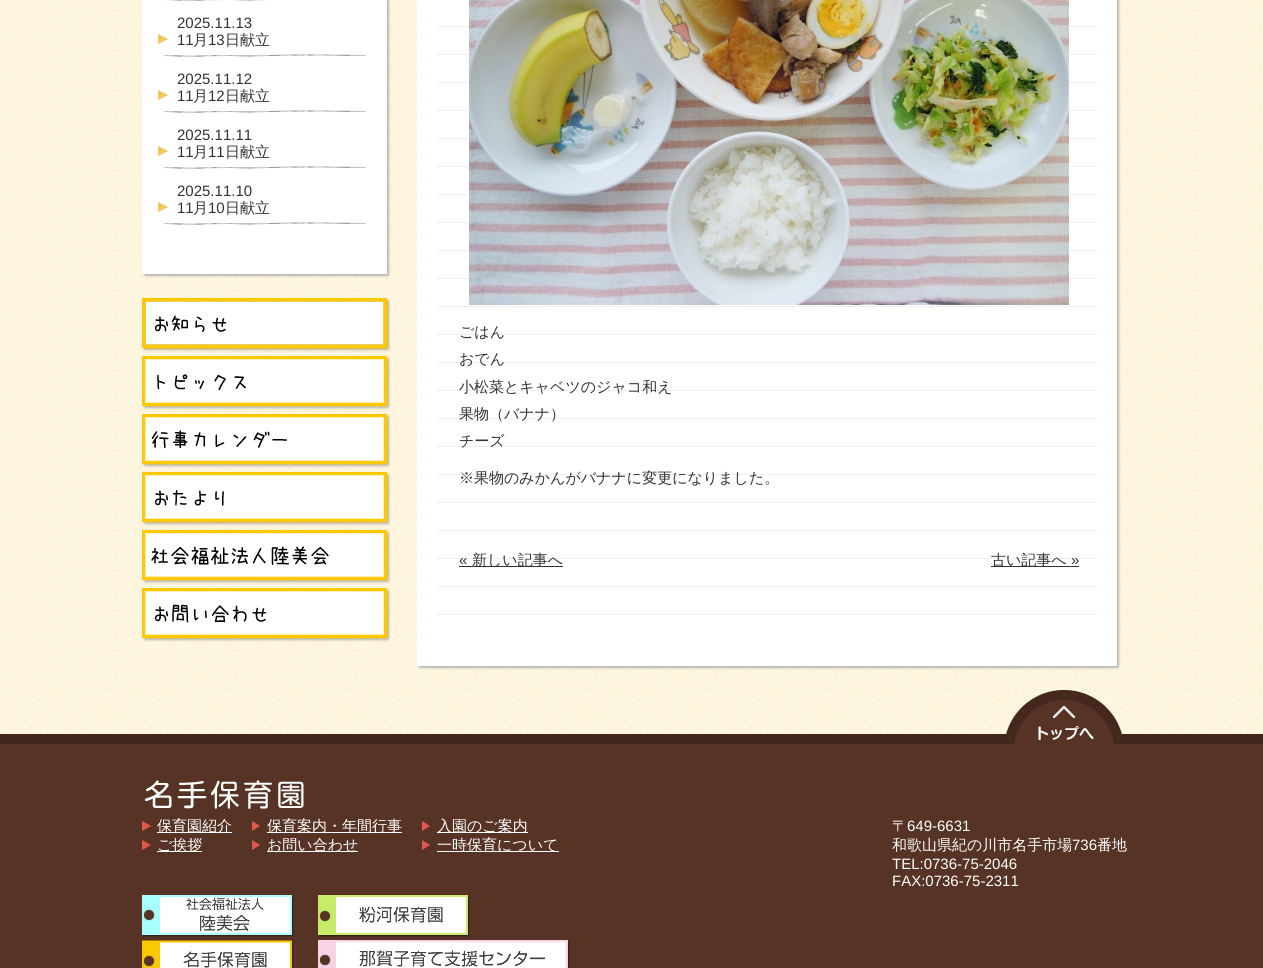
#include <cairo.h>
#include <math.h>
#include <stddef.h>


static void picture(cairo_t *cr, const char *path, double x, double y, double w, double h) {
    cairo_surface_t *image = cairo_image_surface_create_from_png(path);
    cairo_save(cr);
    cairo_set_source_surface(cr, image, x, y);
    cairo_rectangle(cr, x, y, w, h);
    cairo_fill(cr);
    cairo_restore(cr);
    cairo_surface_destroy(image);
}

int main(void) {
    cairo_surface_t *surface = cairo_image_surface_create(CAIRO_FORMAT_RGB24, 1263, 968);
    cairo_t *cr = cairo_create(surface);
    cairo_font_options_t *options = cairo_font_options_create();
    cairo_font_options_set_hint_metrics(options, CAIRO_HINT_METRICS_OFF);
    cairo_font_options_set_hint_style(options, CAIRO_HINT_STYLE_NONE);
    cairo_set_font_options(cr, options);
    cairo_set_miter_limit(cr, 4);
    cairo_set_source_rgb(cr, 1, 1, 1);
    cairo_paint(cr);
    picture(cr, "img1.png", 0, 0, 1263, 690);
    picture(cr, "img2.png", 142, 0, 249, 238);
    picture(cr, "img3.png", 166, 0, 101, 1);
    picture(cr, "img4.png", 158, 34, 208, 23);
    cairo_select_font_face(cr, "Liberation Sans", CAIRO_FONT_SLANT_NORMAL, CAIRO_FONT_WEIGHT_NORMAL);
    cairo_set_font_size(cr, 15);
    cairo_set_source_rgb(cr, 0.2, 0.2, 0.2);
    cairo_move_to(cr, 177, 28);
    cairo_show_text(cr, "2025.11.13");
    cairo_move_to(cr, 177, 45);
    cairo_show_text(cr, "11");
    cairo_select_font_face(cr, "WenQuanYi Zen Hei Medium", CAIRO_FONT_SLANT_NORMAL, CAIRO_FONT_WEIGHT_NORMAL);
    cairo_move_to(cr, 193, 45);
    cairo_show_text(cr, "月");
    cairo_select_font_face(cr, "Liberation Sans", CAIRO_FONT_SLANT_NORMAL, CAIRO_FONT_WEIGHT_NORMAL);
    cairo_move_to(cr, 208, 45);
    cairo_show_text(cr, "13");
    cairo_select_font_face(cr, "WenQuanYi Zen Hei Medium", CAIRO_FONT_SLANT_NORMAL, CAIRO_FONT_WEIGHT_NORMAL);
    cairo_move_to(cr, 225, 45);
    cairo_show_text(cr, "日献立");
    picture(cr, "img4.png", 158, 90, 208, 23);
    cairo_select_font_face(cr, "Liberation Sans", CAIRO_FONT_SLANT_NORMAL, CAIRO_FONT_WEIGHT_NORMAL);
    cairo_move_to(cr, 177, 84);
    cairo_show_text(cr, "2025.11.12");
    cairo_move_to(cr, 177, 101);
    cairo_show_text(cr, "11");
    cairo_select_font_face(cr, "WenQuanYi Zen Hei Medium", CAIRO_FONT_SLANT_NORMAL, CAIRO_FONT_WEIGHT_NORMAL);
    cairo_move_to(cr, 193, 101);
    cairo_show_text(cr, "月");
    cairo_select_font_face(cr, "Liberation Sans", CAIRO_FONT_SLANT_NORMAL, CAIRO_FONT_WEIGHT_NORMAL);
    cairo_move_to(cr, 208, 101);
    cairo_show_text(cr, "12");
    cairo_select_font_face(cr, "WenQuanYi Zen Hei Medium", CAIRO_FONT_SLANT_NORMAL, CAIRO_FONT_WEIGHT_NORMAL);
    cairo_move_to(cr, 225, 101);
    cairo_show_text(cr, "日献立");
    picture(cr, "img4.png", 158, 146, 208, 23);
    cairo_select_font_face(cr, "Liberation Sans", CAIRO_FONT_SLANT_NORMAL, CAIRO_FONT_WEIGHT_NORMAL);
    cairo_move_to(cr, 177, 140);
    cairo_show_text(cr, "2025.11.11");
    cairo_move_to(cr, 177, 157);
    cairo_show_text(cr, "11");
    cairo_select_font_face(cr, "WenQuanYi Zen Hei Medium", CAIRO_FONT_SLANT_NORMAL, CAIRO_FONT_WEIGHT_NORMAL);
    cairo_move_to(cr, 193, 157);
    cairo_show_text(cr, "月");
    cairo_select_font_face(cr, "Liberation Sans", CAIRO_FONT_SLANT_NORMAL, CAIRO_FONT_WEIGHT_NORMAL);
    cairo_move_to(cr, 208, 157);
    cairo_show_text(cr, "11");
    cairo_select_font_face(cr, "WenQuanYi Zen Hei Medium", CAIRO_FONT_SLANT_NORMAL, CAIRO_FONT_WEIGHT_NORMAL);
    cairo_move_to(cr, 225, 157);
    cairo_show_text(cr, "日献立");
    picture(cr, "img4.png", 158, 202, 208, 23);
    cairo_select_font_face(cr, "Liberation Sans", CAIRO_FONT_SLANT_NORMAL, CAIRO_FONT_WEIGHT_NORMAL);
    cairo_move_to(cr, 177, 196);
    cairo_show_text(cr, "2025.11.10");
    cairo_move_to(cr, 177, 213);
    cairo_show_text(cr, "11");
    cairo_select_font_face(cr, "WenQuanYi Zen Hei Medium", CAIRO_FONT_SLANT_NORMAL, CAIRO_FONT_WEIGHT_NORMAL);
    cairo_move_to(cr, 193, 213);
    cairo_show_text(cr, "月");
    cairo_select_font_face(cr, "Liberation Sans", CAIRO_FONT_SLANT_NORMAL, CAIRO_FONT_WEIGHT_NORMAL);
    cairo_move_to(cr, 208, 213);
    cairo_show_text(cr, "10");
    cairo_select_font_face(cr, "WenQuanYi Zen Hei Medium", CAIRO_FONT_SLANT_NORMAL, CAIRO_FONT_WEIGHT_NORMAL);
    cairo_move_to(cr, 225, 213);
    cairo_show_text(cr, "日献立");
    picture(cr, "img5.png", 142, 238, 249, 40);
    picture(cr, "img6.png", 142, 298, 249, 54);
    picture(cr, "img7.png", 142, 356, 249, 54);
    picture(cr, "img8.png", 142, 414, 249, 54);
    picture(cr, "img9.png", 142, 472, 249, 54);
    picture(cr, "img10.png", 142, 530, 249, 54);
    picture(cr, "img11.png", 142, 588, 249, 54);
    picture(cr, "img12.png", 417, 0, 704, 630);
    picture(cr, "img13.png", 469, 0, 600, 305);
    cairo_move_to(cr, 459, 337);
    cairo_show_text(cr, "ごはん");
    cairo_move_to(cr, 459, 364);
    cairo_show_text(cr, "おでん");
    cairo_move_to(cr, 459, 392);
    cairo_show_text(cr, "小松菜とキャベツのジャコ和え");
    cairo_move_to(cr, 459, 419);
    cairo_show_text(cr, "果物（バナナ）");
    cairo_move_to(cr, 459, 446);
    cairo_show_text(cr, "チーズ");
    cairo_move_to(cr, 459, 483);
    cairo_show_text(cr, "※果物のみかんがバナナに変更になりました。");
    cairo_select_font_face(cr, "Liberation Sans", CAIRO_FONT_SLANT_NORMAL, CAIRO_FONT_WEIGHT_NORMAL);
    cairo_move_to(cr, 459, 565);
    cairo_show_text(cr, "«");
    cairo_rectangle(cr, 459, 566, 104, 1);
    cairo_fill(cr);
    cairo_select_font_face(cr, "WenQuanYi Zen Hei Medium", CAIRO_FONT_SLANT_NORMAL, CAIRO_FONT_WEIGHT_NORMAL);
    cairo_move_to(cr, 472, 565);
    cairo_show_text(cr, "新しい記事へ");
    cairo_rectangle(cr, 991, 566, 88, 1);
    cairo_fill(cr);
    cairo_move_to(cr, 991, 565);
    cairo_show_text(cr, "古い記事へ");
    cairo_select_font_face(cr, "Liberation Sans", CAIRO_FONT_SLANT_NORMAL, CAIRO_FONT_WEIGHT_NORMAL);
    cairo_move_to(cr, 1071, 565);
    cairo_show_text(cr, "»");
    picture(cr, "img14.png", 417, 630, 704, 40);
    picture(cr, "img15.png", 0, 690, 1263, 54);
    picture(cr, "img16.png", 1006, 690, 116, 54);
    cairo_set_source_rgb(cr, 0.341, 0.2, 0.145);
    cairo_rectangle(cr, 0, 744, 1263, 224);
    cairo_fill(cr);
    picture(cr, "img17.png", 145, 780, 159, 29);
    picture(cr, "img18.png", 142, 821, 9, 10);
    cairo_set_source_rgb(cr, 1, 1, 1);
    cairo_rectangle(cr, 157, 832, 75, 1);
    cairo_fill(cr);
    cairo_select_font_face(cr, "WenQuanYi Zen Hei Medium", CAIRO_FONT_SLANT_NORMAL, CAIRO_FONT_WEIGHT_NORMAL);
    cairo_move_to(cr, 157, 831);
    cairo_show_text(cr, "保育園紹介");
    picture(cr, "img18.png", 142, 840, 9, 10);
    cairo_rectangle(cr, 157, 851, 45, 1);
    cairo_fill(cr);
    cairo_move_to(cr, 157, 850);
    cairo_show_text(cr, "ご挨拶");
    picture(cr, "img19.png", 252, 821, 8, 10);
    cairo_rectangle(cr, 267, 832, 135, 1);
    cairo_fill(cr);
    cairo_move_to(cr, 267, 831);
    cairo_show_text(cr, "保育案内・年間行事");
    picture(cr, "img19.png", 252, 840, 8, 10);
    cairo_rectangle(cr, 267, 851, 91, 1);
    cairo_fill(cr);
    cairo_move_to(cr, 267, 850);
    cairo_show_text(cr, "お問い合わせ");
    picture(cr, "img19.png", 422, 821, 8, 10);
    cairo_rectangle(cr, 437, 832, 91, 1);
    cairo_fill(cr);
    cairo_move_to(cr, 437, 831);
    cairo_show_text(cr, "入園のご案内");
    picture(cr, "img19.png", 422, 840, 8, 10);
    cairo_rectangle(cr, 437, 851, 122, 1);
    cairo_fill(cr);
    cairo_move_to(cr, 437, 850);
    cairo_show_text(cr, "一時保育について");
    picture(cr, "img20.png", 142, 895, 152, 42);
    picture(cr, "img21.png", 318, 895, 152, 42);
    picture(cr, "img22.png", 142, 940, 152, 28);
    picture(cr, "img23.png", 318, 940, 252, 28);
    cairo_move_to(cr, 892, 831);
    cairo_show_text(cr, "〒");
    cairo_select_font_face(cr, "Liberation Sans", CAIRO_FONT_SLANT_NORMAL, CAIRO_FONT_WEIGHT_NORMAL);
    cairo_move_to(cr, 907, 831);
    cairo_show_text(cr, "649-6631");
    cairo_select_font_face(cr, "WenQuanYi Zen Hei Medium", CAIRO_FONT_SLANT_NORMAL, CAIRO_FONT_WEIGHT_NORMAL);
    cairo_move_to(cr, 892, 850);
    cairo_show_text(cr, "和歌山県紀の川市名手市場");
    cairo_select_font_face(cr, "Liberation Sans", CAIRO_FONT_SLANT_NORMAL, CAIRO_FONT_WEIGHT_NORMAL);
    cairo_move_to(cr, 1072, 850);
    cairo_show_text(cr, "736");
    cairo_select_font_face(cr, "WenQuanYi Zen Hei Medium", CAIRO_FONT_SLANT_NORMAL, CAIRO_FONT_WEIGHT_NORMAL);
    cairo_move_to(cr, 1097, 850);
    cairo_show_text(cr, "番地");
    cairo_select_font_face(cr, "Liberation Sans", CAIRO_FONT_SLANT_NORMAL, CAIRO_FONT_WEIGHT_NORMAL);
    cairo_move_to(cr, 892, 869);
    cairo_show_text(cr, "TEL:0736-75-2046");
    cairo_move_to(cr, 892, 886);
    cairo_show_text(cr, "FAX:0736-75-2311");
    cairo_surface_write_to_png(surface, "page.png");
    cairo_font_options_destroy(options);
    cairo_destroy(cr);
    cairo_surface_destroy(surface);
    return 0;
}
